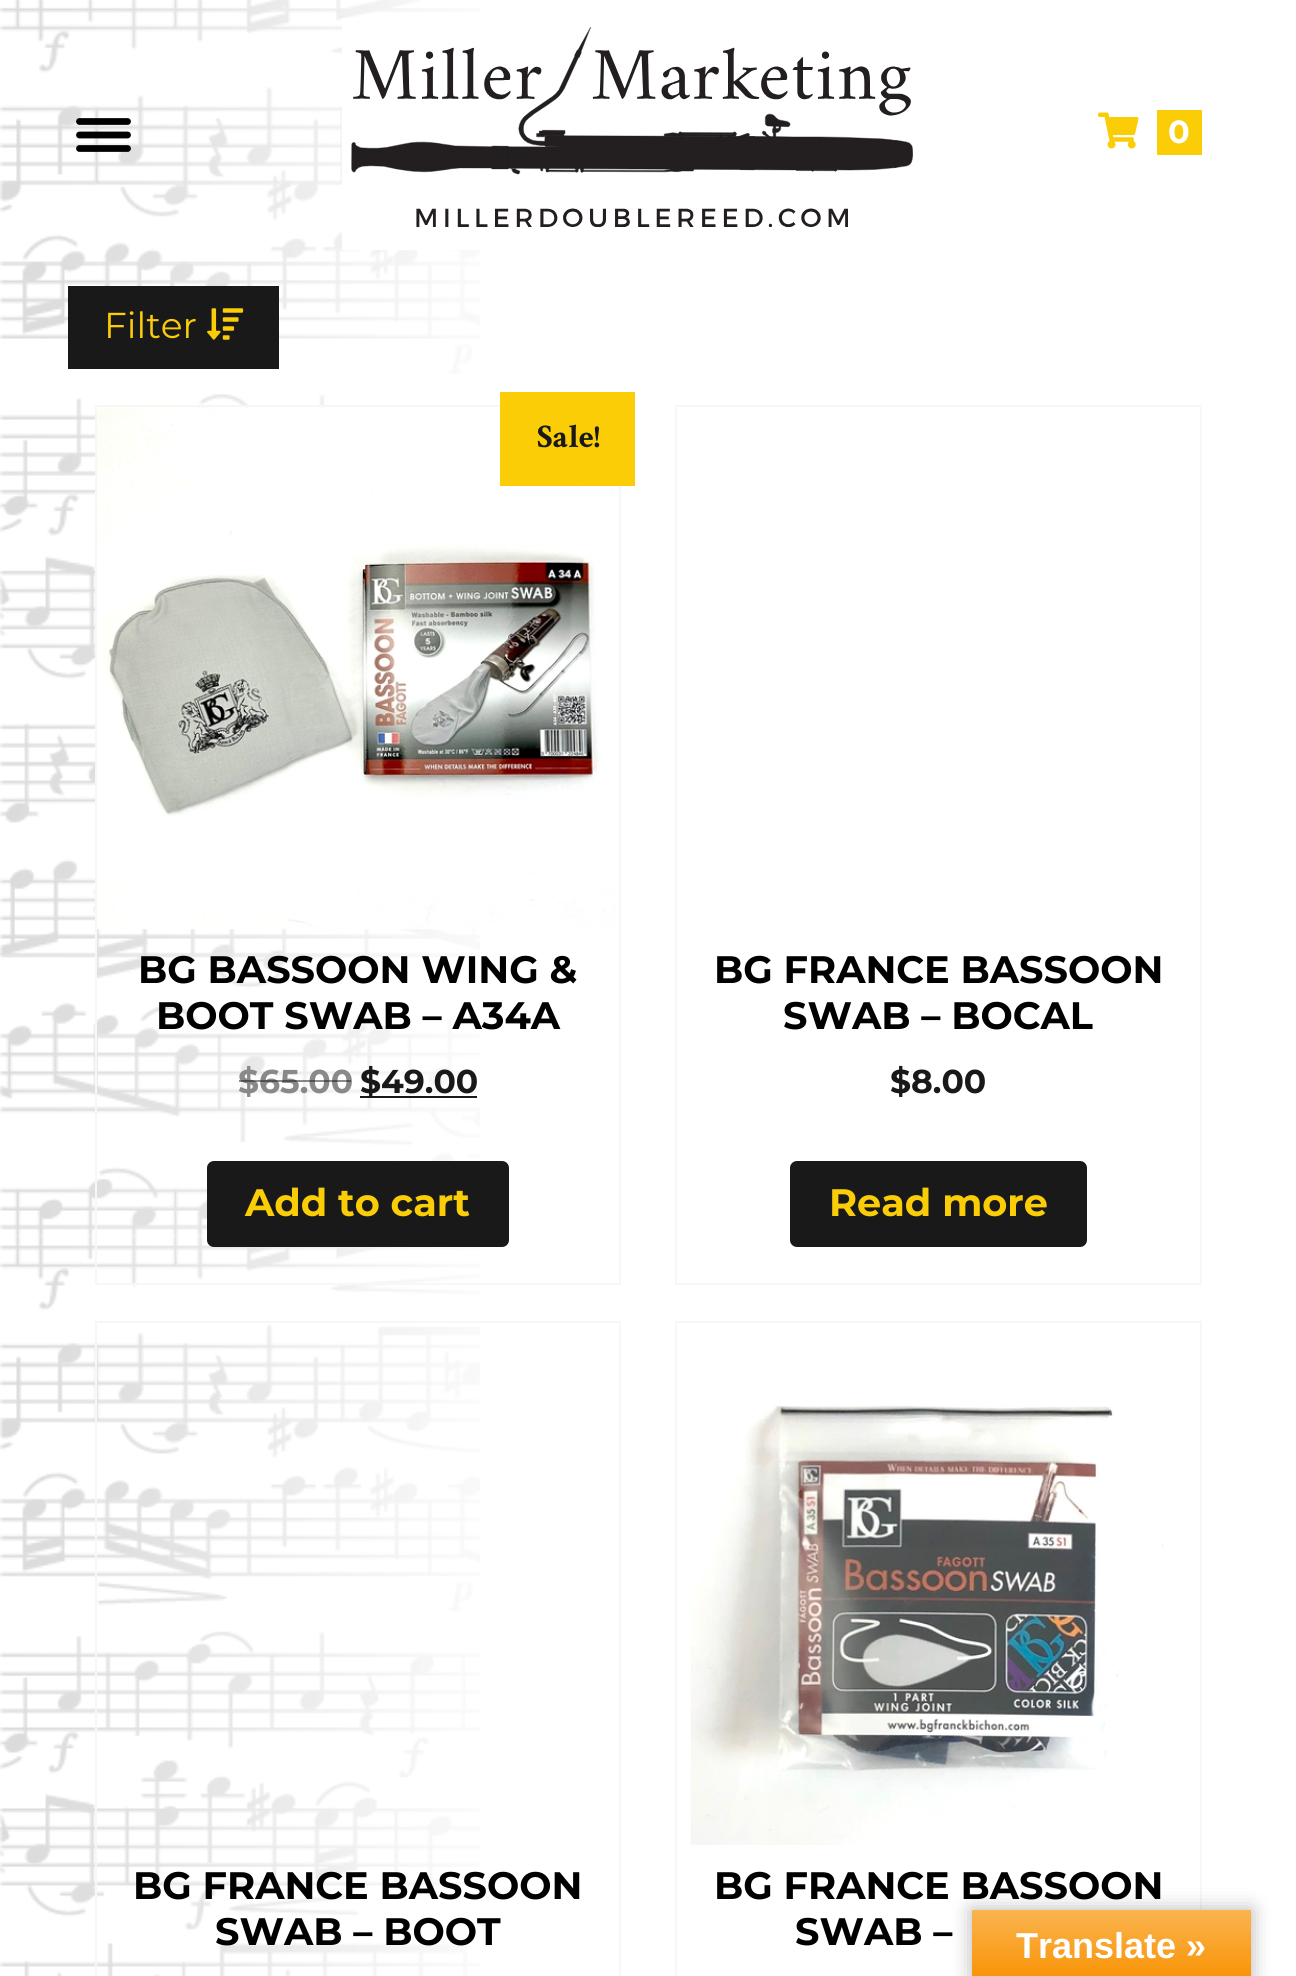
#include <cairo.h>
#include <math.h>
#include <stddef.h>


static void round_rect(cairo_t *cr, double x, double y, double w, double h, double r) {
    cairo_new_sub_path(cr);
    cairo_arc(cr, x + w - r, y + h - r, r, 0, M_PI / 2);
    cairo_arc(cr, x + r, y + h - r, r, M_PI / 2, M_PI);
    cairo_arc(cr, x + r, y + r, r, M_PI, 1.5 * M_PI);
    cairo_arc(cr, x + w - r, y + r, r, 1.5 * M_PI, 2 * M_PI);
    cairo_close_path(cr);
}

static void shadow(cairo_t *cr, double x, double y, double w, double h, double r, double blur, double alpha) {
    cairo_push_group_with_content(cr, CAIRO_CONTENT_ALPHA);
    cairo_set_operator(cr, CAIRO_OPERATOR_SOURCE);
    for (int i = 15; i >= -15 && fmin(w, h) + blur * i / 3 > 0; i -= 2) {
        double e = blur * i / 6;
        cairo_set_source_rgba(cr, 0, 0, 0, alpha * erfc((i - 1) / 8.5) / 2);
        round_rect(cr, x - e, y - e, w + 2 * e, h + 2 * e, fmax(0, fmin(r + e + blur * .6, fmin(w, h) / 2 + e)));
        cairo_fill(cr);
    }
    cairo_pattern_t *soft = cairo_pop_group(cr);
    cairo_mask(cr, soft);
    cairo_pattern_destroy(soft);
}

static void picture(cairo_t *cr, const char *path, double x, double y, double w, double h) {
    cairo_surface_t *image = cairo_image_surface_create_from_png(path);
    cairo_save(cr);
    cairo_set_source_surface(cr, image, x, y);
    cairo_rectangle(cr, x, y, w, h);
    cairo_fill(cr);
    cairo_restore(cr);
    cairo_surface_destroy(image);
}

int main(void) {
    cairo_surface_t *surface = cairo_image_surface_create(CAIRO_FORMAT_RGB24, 1296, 1976);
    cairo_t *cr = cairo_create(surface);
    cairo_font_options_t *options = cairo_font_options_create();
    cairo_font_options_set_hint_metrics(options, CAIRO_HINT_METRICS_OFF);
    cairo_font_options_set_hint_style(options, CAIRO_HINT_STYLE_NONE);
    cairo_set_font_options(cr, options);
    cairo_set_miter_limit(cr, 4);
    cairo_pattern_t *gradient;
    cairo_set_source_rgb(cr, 1, 1, 1);
    cairo_paint(cr);
    picture(cr, "img1.png", 0, 0, 480, 1976);
    cairo_new_path(cr);
    cairo_move_to(cr, 79.5, 121.5);
    cairo_line_to(cr, 127.5, 121.5);
    cairo_move_to(cr, 79.5, 135);
    cairo_line_to(cr, 127.5, 135);
    cairo_move_to(cr, 79.5, 148.5);
    cairo_line_to(cr, 127.5, 148.5);
    cairo_set_source_rgb(cr, 0, 0, 0);
    cairo_set_line_width(cr, 6.8);
    cairo_set_line_cap(cr, CAIRO_LINE_CAP_ROUND);
    cairo_stroke(cr);
    cairo_set_source_rgb(cr, 1, 1, 1);
    cairo_rectangle(cr, 342, 18, 138, 232);
    cairo_fill(cr);
    picture(cr, "img2.png", 351, 27, 562, 200);
    picture(cr, "img3.png", 1098, 112, 41, 37);
    cairo_set_source_rgb(cr, 0.98, 0.804, 0.024);
    cairo_rectangle(cr, 1157, 110, 45, 45);
    cairo_fill(cr);
    cairo_select_font_face(cr, "Montserrat", CAIRO_FONT_SLANT_NORMAL, CAIRO_FONT_WEIGHT_BOLD);
    cairo_set_font_size(cr, 32);
    cairo_set_source_rgb(cr, 1, 1, 1);
    cairo_move_to(cr, 1168, 143);
    cairo_show_text(cr, "0");
    cairo_set_source_rgb(cr, 0.098, 0.098, 0.098);
    cairo_rectangle(cr, 68, 286, 211, 83);
    cairo_fill(cr);
    cairo_select_font_face(cr, "Montserrat", CAIRO_FONT_SLANT_NORMAL, CAIRO_FONT_WEIGHT_NORMAL);
    cairo_set_font_size(cr, 36);
    cairo_set_source_rgb(cr, 0.98, 0.804, 0.024);
    cairo_move_to(cr, 104, 338);
    cairo_show_text(cr, "Filter");
    picture(cr, "img4.png", 207, 308, 37, 32);
    cairo_rectangle(cr, 96, 406, 524, 878);
    cairo_set_source_rgb(cr, 0.965, 0.965, 0.965);
    cairo_set_line_width(cr, 2);
    cairo_set_line_cap(cr, CAIRO_LINE_CAP_BUTT);
    cairo_stroke(cr);
    picture(cr, "img5.png", 97, 407, 521, 523);
    cairo_set_source_rgb(cr, 0.98, 0.804, 0.024);
    cairo_rectangle(cr, 500, 392, 135, 94);
    cairo_fill(cr);
    cairo_select_font_face(cr, "Crimson Text", CAIRO_FONT_SLANT_NORMAL, CAIRO_FONT_WEIGHT_BOLD);
    cairo_set_font_size(cr, 33);
    cairo_set_source_rgb(cr, 0.098, 0.098, 0.098);
    cairo_move_to(cr, 537, 447);
    cairo_show_text(cr, "Sale!");
    cairo_select_font_face(cr, "Montserrat", CAIRO_FONT_SLANT_NORMAL, CAIRO_FONT_WEIGHT_BOLD);
    cairo_set_font_size(cr, 38.25);
    cairo_set_source_rgb(cr, 0, 0, 0);
    cairo_move_to(cr, 138, 983);
    cairo_show_text(cr, "BG BASSOON WING &");
    cairo_move_to(cr, 156, 1029);
    cairo_show_text(cr, "BOOT SWAB – A34A");
    cairo_set_font_size(cr, 33);
    cairo_set_source_rgb(cr, 0.537, 0.537, 0.537);
    cairo_move_to(cr, 238, 1093);
    cairo_show_text(cr, "$");
    cairo_move_to(cr, 259, 1093);
    cairo_show_text(cr, "65.00");
    cairo_set_source_rgba(cr, 0.098, 0.098, 0.098, 0.5);
    cairo_rectangle(cr, 259, 1080, 92, 2);
    cairo_fill(cr);
    cairo_rectangle(cr, 239, 1080, 20, 2);
    cairo_fill(cr);
    cairo_set_source_rgb(cr, 0.098, 0.098, 0.098);
    cairo_rectangle(cr, 360, 1096, 117, 2);
    cairo_fill(cr);
    cairo_move_to(cr, 360, 1093);
    cairo_show_text(cr, "$");
    cairo_move_to(cr, 381, 1093);
    cairo_show_text(cr, "49.00");
    round_rect(cr, 207, 1161, 302, 86, 7);
    cairo_fill(cr);
    cairo_set_font_size(cr, 38.25);
    cairo_set_source_rgb(cr, 0.98, 0.804, 0.024);
    cairo_move_to(cr, 245, 1216);
    cairo_show_text(cr, "Add to cart");
    cairo_rectangle(cr, 676, 406, 525, 878);
    cairo_set_source_rgb(cr, 0.965, 0.965, 0.965);
    cairo_stroke(cr);
    cairo_set_source_rgb(cr, 0, 0, 0);
    cairo_move_to(cr, 714, 983);
    cairo_show_text(cr, "BG FRANCE BASSOON");
    cairo_move_to(cr, 783, 1029);
    cairo_show_text(cr, "SWAB – BOCAL");
    cairo_set_font_size(cr, 33);
    cairo_set_source_rgb(cr, 0.098, 0.098, 0.098);
    cairo_move_to(cr, 890, 1093);
    cairo_show_text(cr, "$");
    cairo_move_to(cr, 911, 1093);
    cairo_show_text(cr, "8.00");
    round_rect(cr, 790, 1161, 297, 86, 7);
    cairo_fill(cr);
    cairo_set_font_size(cr, 38.25);
    cairo_set_source_rgb(cr, 0.98, 0.804, 0.024);
    cairo_move_to(cr, 829, 1216);
    cairo_show_text(cr, "Read more");
    cairo_rectangle(cr, 96, 1322, 524, 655);
    cairo_set_source_rgb(cr, 0.965, 0.965, 0.965);
    cairo_stroke(cr);
    cairo_set_source_rgb(cr, 0, 0, 0);
    cairo_move_to(cr, 133, 1899);
    cairo_show_text(cr, "BG FRANCE BASSOON");
    cairo_move_to(cr, 215, 1945);
    cairo_show_text(cr, "SWAB – BOOT");
    cairo_rectangle(cr, 676, 1322, 525, 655);
    cairo_set_source_rgb(cr, 0.965, 0.965, 0.965);
    cairo_stroke(cr);
    picture(cr, "img6.png", 690, 1405, 474, 440);
    cairo_set_source_rgb(cr, 0, 0, 0);
    cairo_move_to(cr, 714, 1899);
    cairo_show_text(cr, "BG FRANCE BASSOON");
    cairo_move_to(cr, 795, 1945);
    cairo_show_text(cr, "SWAB –");
    cairo_set_source_rgb(cr, 0, 0, 0);
    shadow(cr, 972, 1910, 279, 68, 0, 10, 0.3);
    gradient = cairo_pattern_create_linear(1112, 1910, 1112, 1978);
    cairo_pattern_add_color_stop_rgba(gradient, 0, 0.984, 0.706, 0.314, 1);
    cairo_pattern_add_color_stop_rgba(gradient, 1, 0.973, 0.58, 0.024, 1);
    cairo_set_source(cr, gradient);
    cairo_pattern_destroy(gradient);
    cairo_rectangle(cr, 972, 1910, 279, 66);
    cairo_fill(cr);
    cairo_select_font_face(cr, "Liberation Sans", CAIRO_FONT_SLANT_NORMAL, CAIRO_FONT_WEIGHT_BOLD);
    cairo_set_font_size(cr, 36);
    cairo_set_source_rgb(cr, 1, 1, 1);
    cairo_move_to(cr, 1016, 1958);
    cairo_show_text(cr, "Translate »");
    cairo_surface_write_to_png(surface, "page.png");
    cairo_font_options_destroy(options);
    cairo_destroy(cr);
    cairo_surface_destroy(surface);
    return 0;
}
